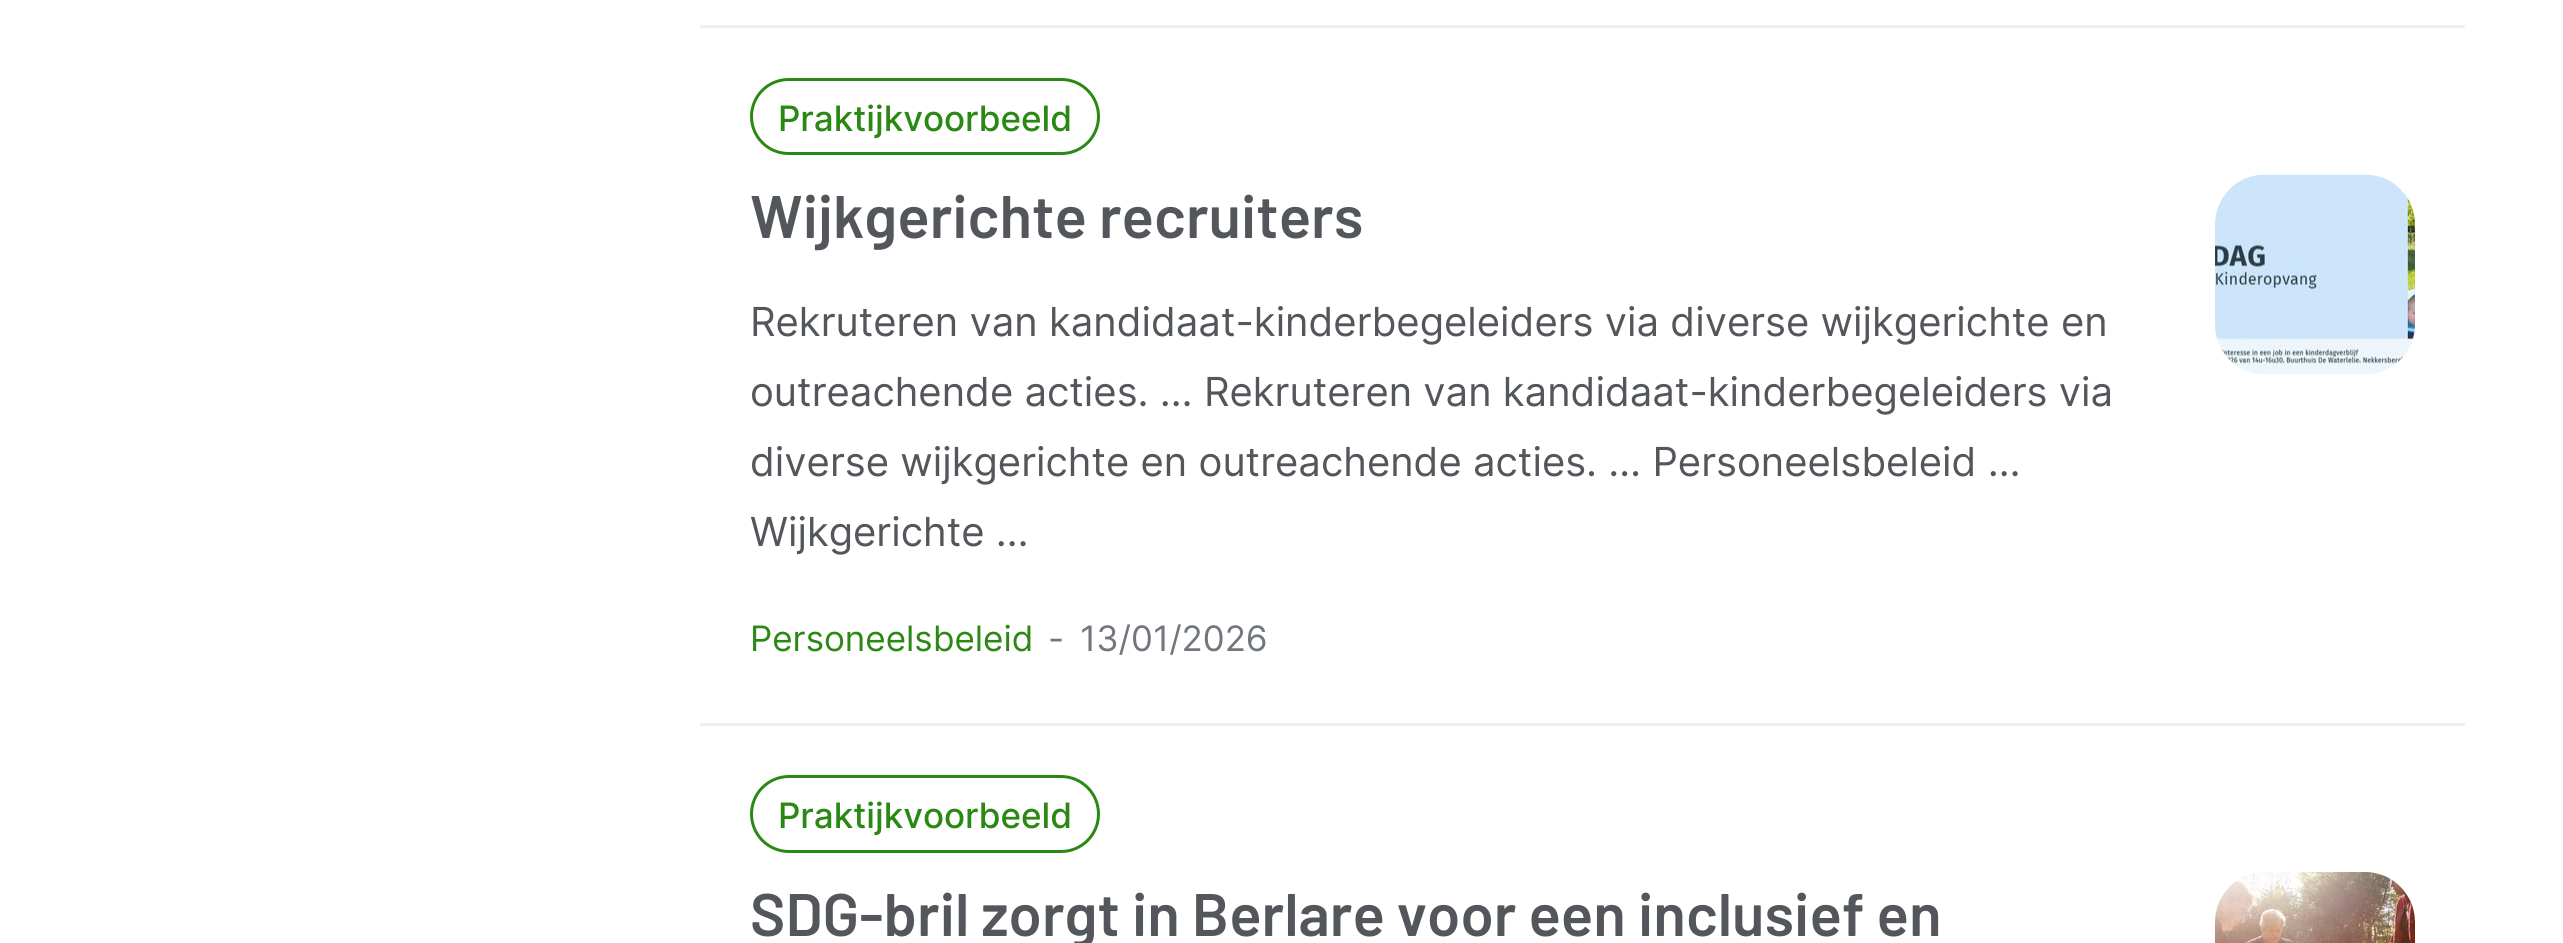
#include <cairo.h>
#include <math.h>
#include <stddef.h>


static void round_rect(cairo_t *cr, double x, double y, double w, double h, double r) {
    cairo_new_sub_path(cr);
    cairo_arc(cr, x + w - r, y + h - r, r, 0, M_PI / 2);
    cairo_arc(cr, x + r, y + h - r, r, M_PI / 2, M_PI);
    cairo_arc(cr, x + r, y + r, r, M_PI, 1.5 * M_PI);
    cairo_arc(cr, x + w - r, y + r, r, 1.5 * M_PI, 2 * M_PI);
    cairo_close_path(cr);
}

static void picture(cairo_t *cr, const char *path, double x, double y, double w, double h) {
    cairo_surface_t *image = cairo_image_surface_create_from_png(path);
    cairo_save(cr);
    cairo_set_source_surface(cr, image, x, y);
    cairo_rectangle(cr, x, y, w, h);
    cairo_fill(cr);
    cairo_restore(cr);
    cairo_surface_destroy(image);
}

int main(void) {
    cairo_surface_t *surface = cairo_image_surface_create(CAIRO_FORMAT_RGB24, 2563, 943);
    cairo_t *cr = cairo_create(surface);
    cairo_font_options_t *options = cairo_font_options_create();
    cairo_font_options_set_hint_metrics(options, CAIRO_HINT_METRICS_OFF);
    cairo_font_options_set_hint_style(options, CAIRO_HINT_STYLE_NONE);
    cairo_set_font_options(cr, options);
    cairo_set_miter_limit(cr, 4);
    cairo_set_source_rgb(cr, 1, 1, 1);
    cairo_paint(cr);
    cairo_set_source_rgb(cr, 0.945, 0.941, 0.941);
    cairo_rectangle(cr, 700, 25, 1765, 3);
    cairo_fill(cr);
    cairo_rectangle(cr, 700, 723, 1765, 3);
    cairo_fill(cr);
    round_rect(cr, 751.5, 79.5, 347, 74, 37);
    cairo_set_source_rgb(cr, 0.169, 0.533, 0.082);
    cairo_set_line_width(cr, 3);
    cairo_stroke(cr);
    cairo_select_font_face(cr, "Inter Medium", CAIRO_FONT_SLANT_NORMAL, CAIRO_FONT_WEIGHT_NORMAL);
    cairo_set_font_size(cr, 35);
    cairo_move_to(cr, 778, 131);
    cairo_show_text(cr, "Praktijkvoorbeeld");
    cairo_select_font_face(cr, "Barlow SemiBold", CAIRO_FONT_SLANT_NORMAL, CAIRO_FONT_WEIGHT_NORMAL);
    cairo_set_font_size(cr, 60);
    cairo_set_source_rgb(cr, 0.325, 0.337, 0.353);
    cairo_move_to(cr, 750, 238);
    cairo_show_text(cr, "Wijkgerichte recruiters");
    cairo_select_font_face(cr, "Inter", CAIRO_FONT_SLANT_NORMAL, CAIRO_FONT_WEIGHT_NORMAL);
    cairo_set_font_size(cr, 40);
    cairo_move_to(cr, 750, 336);
    cairo_show_text(cr, "Rekruteren van kandidaat-kinderbegeleiders via diverse wijkgerichte en");
    cairo_move_to(cr, 750, 406);
    cairo_show_text(cr, "outreachende acties. … Rekruteren van kandidaat-kinderbegeleiders via");
    cairo_move_to(cr, 750, 476);
    cairo_show_text(cr, "diverse wijkgerichte en outreachende acties. … Personeelsbeleid …");
    cairo_move_to(cr, 750, 546);
    cairo_show_text(cr, "Wijkgerichte …");
    cairo_set_font_size(cr, 35);
    cairo_set_source_rgb(cr, 0.169, 0.533, 0.082);
    cairo_move_to(cr, 750, 651);
    cairo_show_text(cr, "Personeelsbeleid");
    cairo_set_source_rgb(cr, 0.443, 0.467, 0.49);
    cairo_move_to(cr, 1048, 651);
    cairo_show_text(cr, "-");
    cairo_move_to(cr, 1080, 651);
    cairo_show_text(cr, "13/01/2026");
    picture(cr, "img1.png", 2215, 174, 200, 201);
    round_rect(cr, 751.5, 776.5, 347, 75, 37.5);
    cairo_set_source_rgb(cr, 0.169, 0.533, 0.082);
    cairo_stroke(cr);
    cairo_select_font_face(cr, "Inter Medium", CAIRO_FONT_SLANT_NORMAL, CAIRO_FONT_WEIGHT_NORMAL);
    cairo_move_to(cr, 778, 828);
    cairo_show_text(cr, "Praktijkvoorbeeld");
    cairo_select_font_face(cr, "Barlow SemiBold", CAIRO_FONT_SLANT_NORMAL, CAIRO_FONT_WEIGHT_NORMAL);
    cairo_set_font_size(cr, 60);
    cairo_set_source_rgb(cr, 0.325, 0.337, 0.353);
    cairo_move_to(cr, 750, 936);
    cairo_show_text(cr, "SDG-bril zorgt in Berlare voor een inclusief en");
    picture(cr, "img2.png", 2215, 872, 200, 71);
    cairo_surface_write_to_png(surface, "page.png");
    cairo_font_options_destroy(options);
    cairo_destroy(cr);
    cairo_surface_destroy(surface);
    return 0;
}
